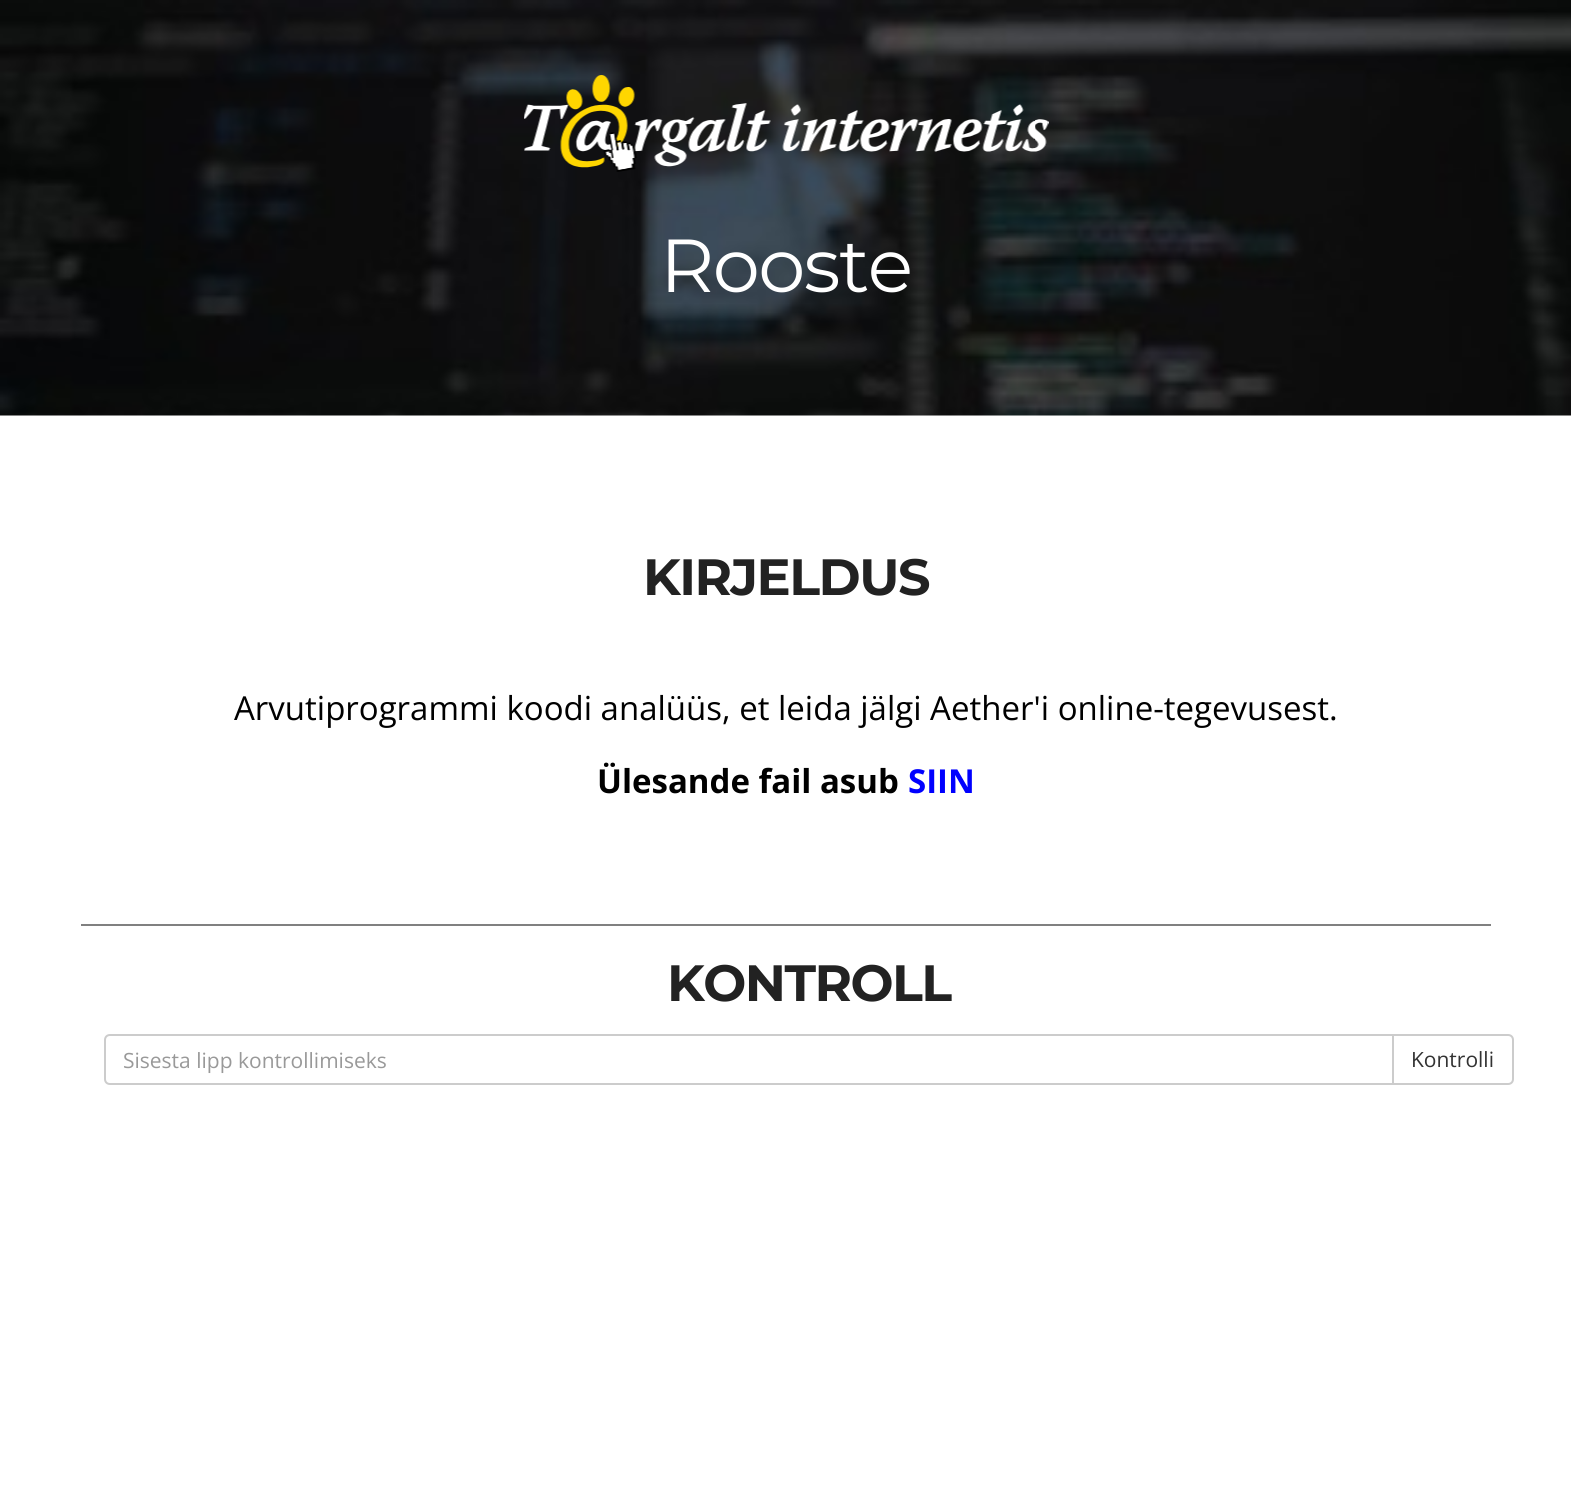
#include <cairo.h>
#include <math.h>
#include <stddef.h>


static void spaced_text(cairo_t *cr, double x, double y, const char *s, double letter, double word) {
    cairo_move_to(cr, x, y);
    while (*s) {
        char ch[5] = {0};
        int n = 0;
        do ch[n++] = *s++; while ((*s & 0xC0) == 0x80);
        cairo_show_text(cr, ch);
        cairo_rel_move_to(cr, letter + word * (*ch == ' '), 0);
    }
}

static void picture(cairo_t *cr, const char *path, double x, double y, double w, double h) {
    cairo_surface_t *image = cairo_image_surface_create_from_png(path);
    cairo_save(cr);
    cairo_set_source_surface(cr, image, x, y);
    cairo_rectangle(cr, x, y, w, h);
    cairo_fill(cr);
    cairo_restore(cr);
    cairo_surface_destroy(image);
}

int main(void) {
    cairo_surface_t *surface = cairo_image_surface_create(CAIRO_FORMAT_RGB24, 1571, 1497);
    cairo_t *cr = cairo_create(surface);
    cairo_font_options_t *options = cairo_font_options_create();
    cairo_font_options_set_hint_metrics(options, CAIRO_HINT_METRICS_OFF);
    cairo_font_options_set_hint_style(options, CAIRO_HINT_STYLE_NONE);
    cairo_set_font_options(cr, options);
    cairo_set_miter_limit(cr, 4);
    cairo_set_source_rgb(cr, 1, 1, 1);
    cairo_paint(cr);
    picture(cr, "img1.png", 0, 0, 1571, 416);
    picture(cr, "img2.png", 524, 75, 525, 97);
    cairo_select_font_face(cr, "Montserrat", CAIRO_FONT_SLANT_NORMAL, CAIRO_FONT_WEIGHT_NORMAL);
    cairo_set_font_size(cr, 75);
    cairo_set_source_rgb(cr, 1, 1, 1);
    spaced_text(cr, 660, 292, "Rooste", -1.5, 0);
    cairo_select_font_face(cr, "Montserrat", CAIRO_FONT_SLANT_NORMAL, CAIRO_FONT_WEIGHT_BOLD);
    cairo_set_font_size(cr, 51);
    cairo_set_source_rgb(cr, 0.133, 0.133, 0.133);
    spaced_text(cr, 643, 595, "KIRJELDUS", -1.5, 0);
    cairo_select_font_face(cr, "Open Sans", CAIRO_FONT_SLANT_NORMAL, CAIRO_FONT_WEIGHT_NORMAL);
    cairo_set_font_size(cr, 33);
    cairo_set_source_rgb(cr, 0, 0, 0);
    cairo_move_to(cr, 234, 720);
    cairo_show_text(cr, "Arvutiprogrammi koodi analüüs, et leida jälgi Aether'i online-tegevusest.");
    cairo_select_font_face(cr, "Open Sans", CAIRO_FONT_SLANT_NORMAL, CAIRO_FONT_WEIGHT_BOLD);
    cairo_move_to(cr, 597, 793);
    cairo_show_text(cr, "Ülesande fail asub");
    cairo_set_source_rgb(cr, 0, 0, 1);
    cairo_move_to(cr, 908, 793);
    cairo_show_text(cr, "SIIN");
    cairo_set_source_rgb(cr, 0.502, 0.502, 0.502);
    cairo_rectangle(cr, 81, 924, 1410, 2);
    cairo_fill(cr);
    cairo_select_font_face(cr, "Montserrat", CAIRO_FONT_SLANT_NORMAL, CAIRO_FONT_WEIGHT_BOLD);
    cairo_set_font_size(cr, 51);
    cairo_set_source_rgb(cr, 0.133, 0.133, 0.133);
    spaced_text(cr, 667, 1001, "KONTROLL", -1.5, 0);
    cairo_new_path(cr);
    cairo_move_to(cr, 110, 1035);
    cairo_line_to(cr, 1393, 1035);
    cairo_line_to(cr, 1393, 1084);
    cairo_line_to(cr, 110, 1084);
    cairo_curve_to(cr, 107, 1084, 105, 1082, 105, 1079);
    cairo_line_to(cr, 105, 1040);
    cairo_curve_to(cr, 105, 1037, 107, 1035, 110, 1035);
    cairo_close_path(cr);
    cairo_set_source_rgb(cr, 0.8, 0.8, 0.8);
    cairo_stroke(cr);
    cairo_select_font_face(cr, "Open Sans", CAIRO_FONT_SLANT_NORMAL, CAIRO_FONT_WEIGHT_NORMAL);
    cairo_set_font_size(cr, 21);
    cairo_set_source_rgb(cr, 0.6, 0.6, 0.6);
    cairo_move_to(cr, 123, 1068);
    cairo_show_text(cr, "Sisesta lipp kontrollimiseks");
    cairo_set_source_rgb(cr, 1, 1, 1);
    cairo_new_path(cr);
    cairo_move_to(cr, 1393, 1035);
    cairo_line_to(cr, 1508, 1035);
    cairo_curve_to(cr, 1511, 1035, 1513, 1037, 1513, 1040);
    cairo_line_to(cr, 1513, 1079);
    cairo_curve_to(cr, 1513, 1082, 1511, 1084, 1508, 1084);
    cairo_line_to(cr, 1393, 1084);
    cairo_close_path(cr);
    cairo_fill_preserve(cr);
    cairo_set_source_rgb(cr, 0.8, 0.8, 0.8);
    cairo_stroke(cr);
    cairo_set_source_rgb(cr, 0.2, 0.2, 0.2);
    cairo_move_to(cr, 1411, 1067);
    cairo_show_text(cr, "Kontrolli");
    cairo_surface_write_to_png(surface, "page.png");
    cairo_font_options_destroy(options);
    cairo_destroy(cr);
    cairo_surface_destroy(surface);
    return 0;
}
